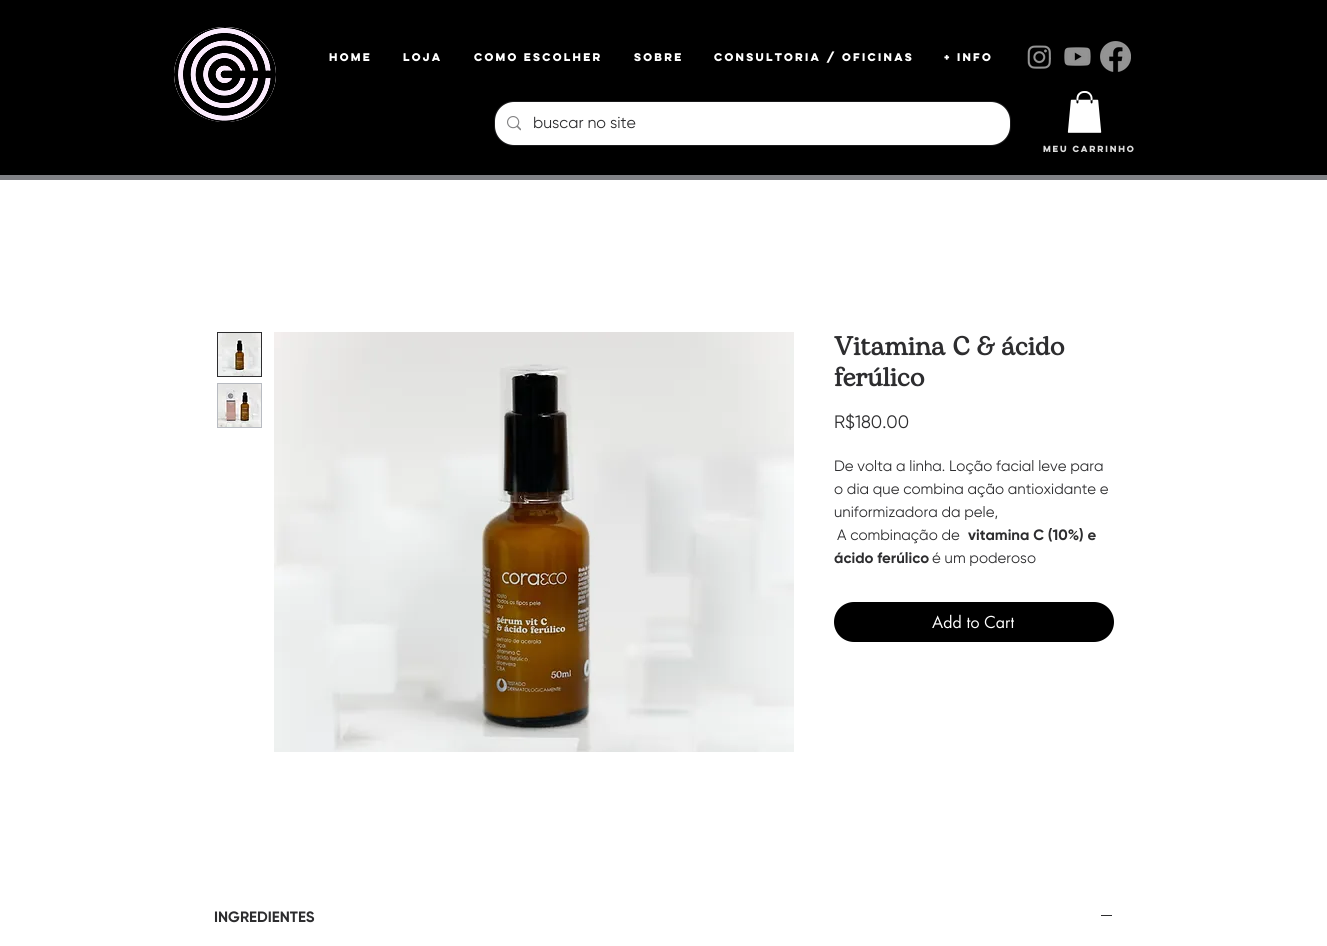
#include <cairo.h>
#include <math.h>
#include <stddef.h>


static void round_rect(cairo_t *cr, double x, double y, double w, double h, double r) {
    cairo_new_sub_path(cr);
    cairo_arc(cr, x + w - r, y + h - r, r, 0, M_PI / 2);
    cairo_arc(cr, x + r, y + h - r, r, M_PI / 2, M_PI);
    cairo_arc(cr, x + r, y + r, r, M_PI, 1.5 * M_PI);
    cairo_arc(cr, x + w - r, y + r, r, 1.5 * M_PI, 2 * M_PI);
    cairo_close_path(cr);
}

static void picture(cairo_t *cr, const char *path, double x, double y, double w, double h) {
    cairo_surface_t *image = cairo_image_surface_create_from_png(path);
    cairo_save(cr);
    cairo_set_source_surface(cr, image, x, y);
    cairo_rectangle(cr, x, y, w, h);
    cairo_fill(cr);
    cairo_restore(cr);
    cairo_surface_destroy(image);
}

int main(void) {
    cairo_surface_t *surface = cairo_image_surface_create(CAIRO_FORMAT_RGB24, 1327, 946);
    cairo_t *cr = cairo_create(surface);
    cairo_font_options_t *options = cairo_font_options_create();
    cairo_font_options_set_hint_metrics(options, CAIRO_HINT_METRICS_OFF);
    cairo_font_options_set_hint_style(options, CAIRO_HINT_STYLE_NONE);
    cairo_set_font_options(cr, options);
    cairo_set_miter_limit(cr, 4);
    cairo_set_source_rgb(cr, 1, 1, 1);
    cairo_paint(cr);
    cairo_set_source_rgb(cr, 0, 0, 0);
    cairo_rectangle(cr, 0, 0, 1327, 175);
    cairo_fill(cr);
    cairo_set_source_rgb(cr, 0.502, 0.51, 0.525);
    cairo_rectangle(cr, 0, 175, 1327, 5);
    cairo_fill(cr);
    cairo_set_source_rgb(cr, 1, 1, 1);
    cairo_new_path(cr);
    cairo_move_to(cr, 225, 27);
    cairo_curve_to(cr, 253, 27, 276, 48.5, 276, 74.5);
    cairo_curve_to(cr, 276, 100.5, 253, 122, 225, 122);
    cairo_curve_to(cr, 197, 122, 174, 100.5, 174, 74.5);
    cairo_curve_to(cr, 174, 48.5, 197, 27, 225, 27);
    cairo_close_path(cr);
    cairo_fill(cr);
    picture(cr, "img1.png", 174, 27, 102, 95);
    cairo_select_font_face(cr, "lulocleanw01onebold", CAIRO_FONT_SLANT_NORMAL, CAIRO_FONT_WEIGHT_BOLD);
    cairo_set_font_size(cr, 10);
    cairo_move_to(cr, 329, 61);
    cairo_show_text(cr, "Home");
    cairo_move_to(cr, 403, 61);
    cairo_show_text(cr, "Loja");
    cairo_move_to(cr, 474, 61);
    cairo_show_text(cr, "como escolher");
    cairo_move_to(cr, 634, 61);
    cairo_show_text(cr, "Sobre");
    cairo_move_to(cr, 714, 61);
    cairo_show_text(cr, "Consultoria / Oficinas");
    cairo_move_to(cr, 944, 61);
    cairo_show_text(cr, "+ Info");
    picture(cr, "img2.png", 1027, 45, 24, 24);
    picture(cr, "img3.png", 1064, 47, 27, 19);
    picture(cr, "img4.png", 1100, 41, 31, 31);
    round_rect(cr, 494.5, 101.5, 516, 44, 19.5);
    cairo_set_source_rgb(cr, 0.106, 0.106, 0.11);
    cairo_set_line_width(cr, 1);
    cairo_stroke(cr);
    cairo_set_source_rgb(cr, 1, 1, 1);
    round_rect(cr, 495, 102, 515, 43, 19);
    cairo_fill(cr);
    picture(cr, "img5.png", 507, 116, 14, 15);
    cairo_select_font_face(cr, "Gilroy", CAIRO_FONT_SLANT_NORMAL, CAIRO_FONT_WEIGHT_NORMAL);
    cairo_set_font_size(cr, 16);
    cairo_set_source_rgb(cr, 0.176, 0.176, 0.184);
    cairo_move_to(cr, 533, 128);
    cairo_show_text(cr, "buscar no site");
    picture(cr, "img6.png", 1067, 91, 35, 42);
    cairo_select_font_face(cr, "lulocleanw01onebold", CAIRO_FONT_SLANT_NORMAL, CAIRO_FONT_WEIGHT_BOLD);
    cairo_set_font_size(cr, 8);
    cairo_set_source_rgb(cr, 0.859, 0.859, 0.859);
    cairo_move_to(cr, 1043, 152);
    cairo_show_text(cr, "meu carrinho");
    cairo_rectangle(cr, 217.5, 332.5, 44, 44);
    cairo_set_source_rgb(cr, 0.176, 0.176, 0.184);
    cairo_stroke(cr);
    picture(cr, "img7.png", 218, 333, 43, 43);
    cairo_set_source_rgb(cr, 0.722, 0.733, 0.757);
    cairo_rectangle(cr, 217, 383, 45, 45);
    cairo_fill(cr);
    picture(cr, "img8.png", 218, 384, 43, 43);
    picture(cr, "img9.png", 274, 332, 520, 420);
    cairo_select_font_face(cr, "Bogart", CAIRO_FONT_SLANT_NORMAL, CAIRO_FONT_WEIGHT_BOLD);
    cairo_set_font_size(cr, 26);
    cairo_set_source_rgb(cr, 0.176, 0.176, 0.184);
    cairo_move_to(cr, 834, 355);
    cairo_show_text(cr, "Vitamina C & ácido");
    cairo_move_to(cr, 834, 386);
    cairo_show_text(cr, "ferúlico");
    cairo_select_font_face(cr, "Gilroy", CAIRO_FONT_SLANT_NORMAL, CAIRO_FONT_WEIGHT_NORMAL);
    cairo_set_font_size(cr, 18);
    cairo_move_to(cr, 834, 428);
    cairo_show_text(cr, "R$180.00");
    cairo_set_font_size(cr, 15);
    cairo_move_to(cr, 834, 471);
    cairo_show_text(cr, "De volta a linha. Loção facial leve para");
    cairo_move_to(cr, 834, 494);
    cairo_show_text(cr, "o dia que combina ação antioxidante e");
    cairo_move_to(cr, 834, 517);
    cairo_show_text(cr, "uniformizadora da pele,");
    cairo_move_to(cr, 837, 540);
    cairo_show_text(cr, "A combinação de");
    cairo_select_font_face(cr, "Gilroy", CAIRO_FONT_SLANT_NORMAL, CAIRO_FONT_WEIGHT_BOLD);
    cairo_move_to(cr, 968, 540);
    cairo_show_text(cr, "vitamina C (10%) e");
    cairo_move_to(cr, 834, 563);
    cairo_show_text(cr, "ácido ferúlico");
    cairo_select_font_face(cr, "Gilroy", CAIRO_FONT_SLANT_NORMAL, CAIRO_FONT_WEIGHT_NORMAL);
    cairo_move_to(cr, 932, 563);
    cairo_show_text(cr, "é um poderoso");
    cairo_set_source_rgb(cr, 0, 0, 0);
    round_rect(cr, 834, 602, 280, 40, 20);
    cairo_fill(cr);
    cairo_select_font_face(cr, "futura", CAIRO_FONT_SLANT_NORMAL, CAIRO_FONT_WEIGHT_NORMAL);
    cairo_set_font_size(cr, 16);
    cairo_set_source_rgb(cr, 1, 1, 1);
    cairo_move_to(cr, 932, 628);
    cairo_show_text(cr, "Add to Cart");
    cairo_select_font_face(cr, "Gilroy", CAIRO_FONT_SLANT_NORMAL, CAIRO_FONT_WEIGHT_BOLD);
    cairo_set_font_size(cr, 15);
    cairo_set_source_rgb(cr, 0.176, 0.176, 0.184);
    cairo_move_to(cr, 214, 922);
    cairo_show_text(cr, "INGREDIENTES");
    cairo_rectangle(cr, 1101, 915, 11, 1);
    cairo_fill(cr);
    cairo_surface_write_to_png(surface, "page.png");
    cairo_font_options_destroy(options);
    cairo_destroy(cr);
    cairo_surface_destroy(surface);
    return 0;
}
